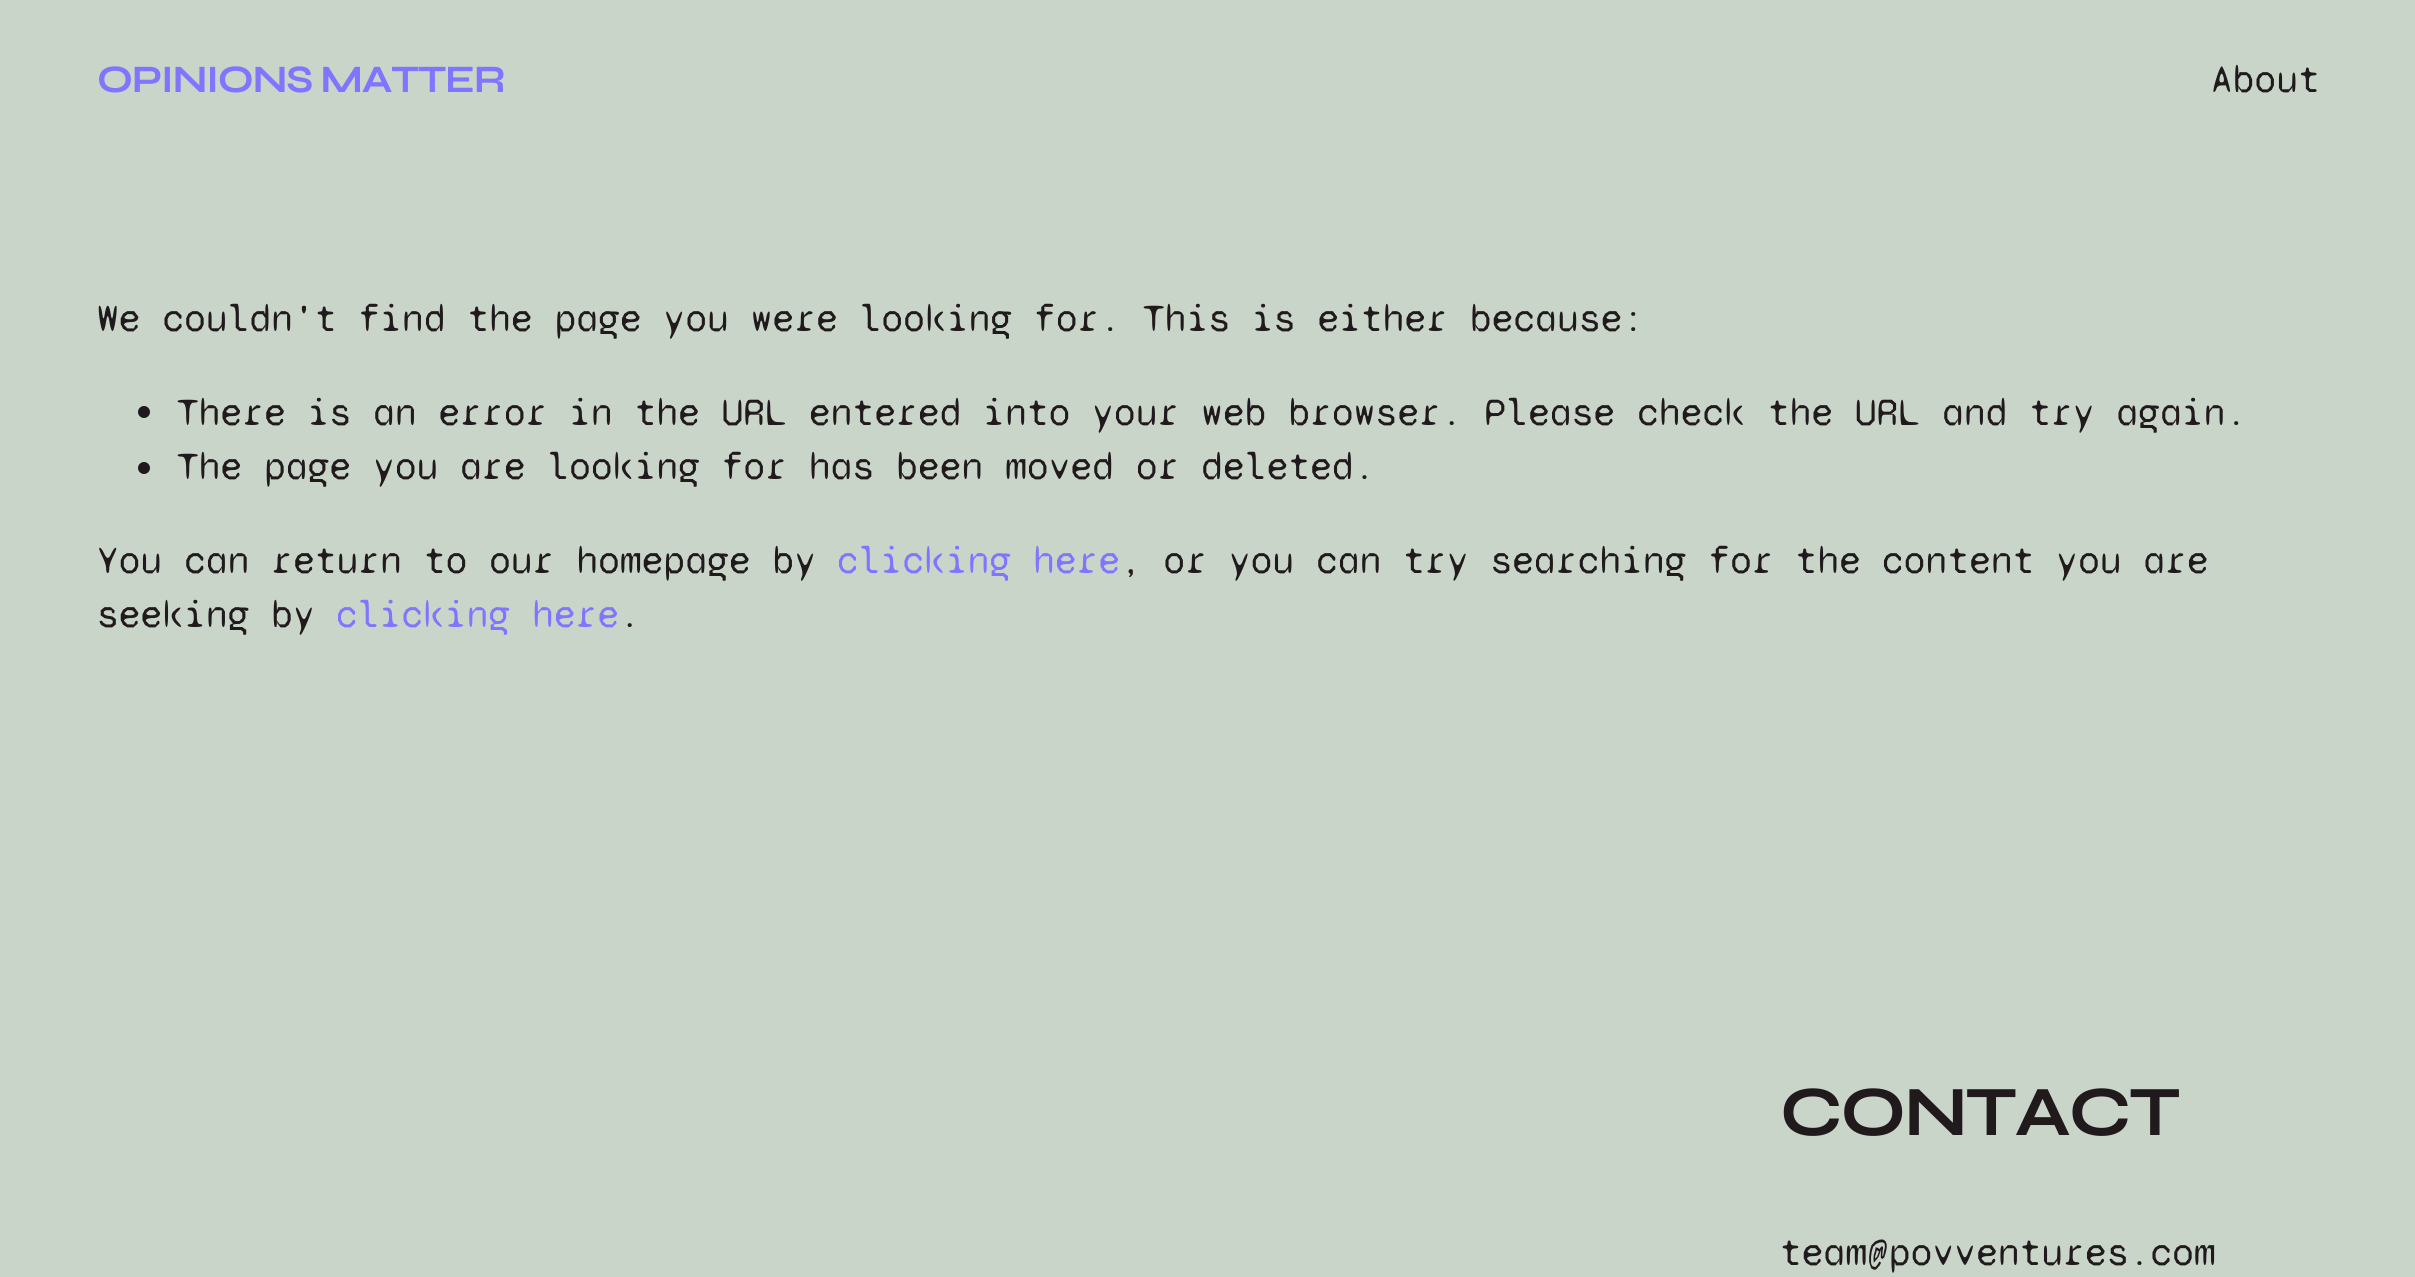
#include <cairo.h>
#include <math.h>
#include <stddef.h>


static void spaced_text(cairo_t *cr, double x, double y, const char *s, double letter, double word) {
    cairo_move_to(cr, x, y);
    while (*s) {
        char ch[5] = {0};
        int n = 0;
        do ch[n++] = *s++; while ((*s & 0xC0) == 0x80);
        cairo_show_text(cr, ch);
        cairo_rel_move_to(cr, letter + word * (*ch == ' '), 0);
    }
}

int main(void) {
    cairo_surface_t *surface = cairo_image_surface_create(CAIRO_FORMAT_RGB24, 2415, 1277);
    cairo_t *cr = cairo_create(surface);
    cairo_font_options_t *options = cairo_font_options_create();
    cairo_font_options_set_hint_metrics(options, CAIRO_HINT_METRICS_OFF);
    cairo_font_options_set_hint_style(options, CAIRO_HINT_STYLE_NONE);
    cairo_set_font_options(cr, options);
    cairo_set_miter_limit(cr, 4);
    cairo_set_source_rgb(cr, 0.792, 0.835, 0.792);
    cairo_paint(cr);
    cairo_select_font_face(cr, "Syne", CAIRO_FONT_SLANT_NORMAL, CAIRO_FONT_WEIGHT_BOLD);
    cairo_set_font_size(cr, 38.9);
    cairo_set_source_rgb(cr, 0.502, 0.459, 1);
    spaced_text(cr, 97, 92, "OPINIONS MATTER", -1.2, 0);
    cairo_select_font_face(cr, "Syne Mono", CAIRO_FONT_SLANT_NORMAL, CAIRO_FONT_WEIGHT_NORMAL);
    cairo_set_source_rgb(cr, 0.129, 0.102, 0.114);
    spaced_text(cr, 2211, 92, "About", 0.4, 0);
    spaced_text(cr, 97, 331, "We couldn't find the page you were looking for. This is either because:", 0.4, 0);
    cairo_new_path(cr);
    cairo_arc(cr, 144, 412, 6, 0, 2 * M_PI);
    cairo_fill(cr);
    spaced_text(cr, 177, 425, "There is an error in the URL entered into your web browser. Please check the URL and try again.", 0.4, 0);
    cairo_new_path(cr);
    cairo_arc(cr, 144, 468, 6, 0, 2 * M_PI);
    cairo_fill(cr);
    spaced_text(cr, 177, 479, "The page you are looking for has been moved or deleted.", 0.4, 0);
    spaced_text(cr, 97, 573, "You can return to our homepage by", 0.4, 0);
    cairo_set_source_rgb(cr, 0.502, 0.459, 1);
    spaced_text(cr, 837, 573, "clicking here", 0.4, 0);
    cairo_set_source_rgb(cr, 0.129, 0.102, 0.114);
    spaced_text(cr, 1120, 573, ", or you can try searching for the", 0.4, 0);
    spaced_text(cr, 1882, 573, "content you are", 0.4, 0);
    spaced_text(cr, 97, 627, "seeking by", 0.4, 0);
    cairo_set_source_rgb(cr, 0.502, 0.459, 1);
    spaced_text(cr, 336, 627, "clicking here", 0.4, 0);
    cairo_set_source_rgb(cr, 0.129, 0.102, 0.114);
    spaced_text(cr, 619, 627, ".", 0.4, 0);
    cairo_select_font_face(cr, "Syne", CAIRO_FONT_SLANT_NORMAL, CAIRO_FONT_WEIGHT_BOLD);
    cairo_set_font_size(cr, 70.75);
    spaced_text(cr, 1780, 1135, "CONTACT", -2, 0);
    cairo_select_font_face(cr, "Syne Mono", CAIRO_FONT_SLANT_NORMAL, CAIRO_FONT_WEIGHT_NORMAL);
    cairo_set_font_size(cr, 38.9);
    spaced_text(cr, 1780, 1265, "team@povventures.com", 0.4, 0);
    cairo_surface_write_to_png(surface, "page.png");
    cairo_font_options_destroy(options);
    cairo_destroy(cr);
    cairo_surface_destroy(surface);
    return 0;
}
